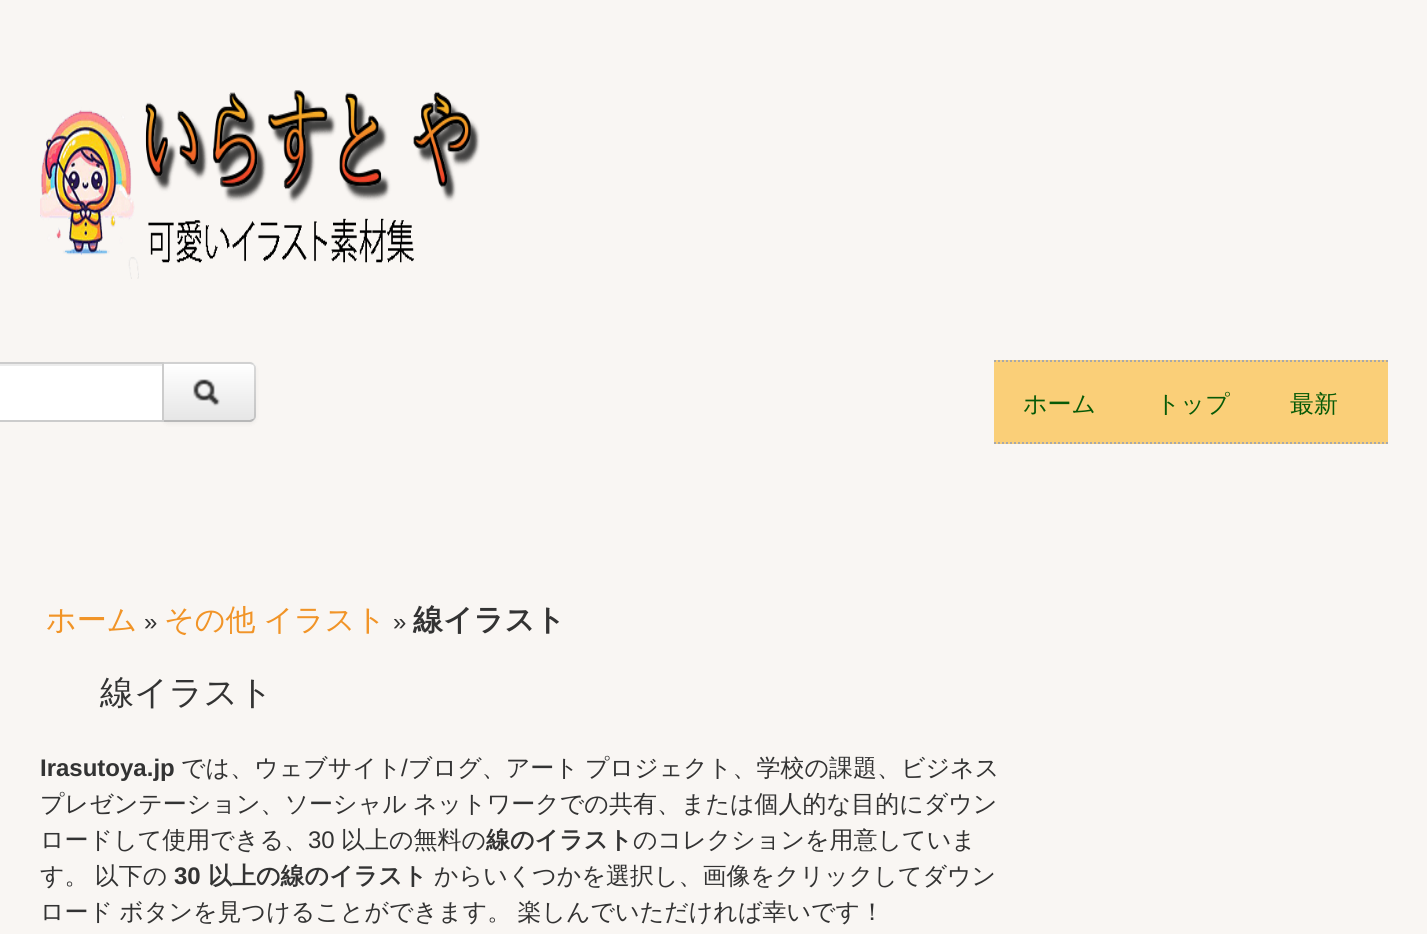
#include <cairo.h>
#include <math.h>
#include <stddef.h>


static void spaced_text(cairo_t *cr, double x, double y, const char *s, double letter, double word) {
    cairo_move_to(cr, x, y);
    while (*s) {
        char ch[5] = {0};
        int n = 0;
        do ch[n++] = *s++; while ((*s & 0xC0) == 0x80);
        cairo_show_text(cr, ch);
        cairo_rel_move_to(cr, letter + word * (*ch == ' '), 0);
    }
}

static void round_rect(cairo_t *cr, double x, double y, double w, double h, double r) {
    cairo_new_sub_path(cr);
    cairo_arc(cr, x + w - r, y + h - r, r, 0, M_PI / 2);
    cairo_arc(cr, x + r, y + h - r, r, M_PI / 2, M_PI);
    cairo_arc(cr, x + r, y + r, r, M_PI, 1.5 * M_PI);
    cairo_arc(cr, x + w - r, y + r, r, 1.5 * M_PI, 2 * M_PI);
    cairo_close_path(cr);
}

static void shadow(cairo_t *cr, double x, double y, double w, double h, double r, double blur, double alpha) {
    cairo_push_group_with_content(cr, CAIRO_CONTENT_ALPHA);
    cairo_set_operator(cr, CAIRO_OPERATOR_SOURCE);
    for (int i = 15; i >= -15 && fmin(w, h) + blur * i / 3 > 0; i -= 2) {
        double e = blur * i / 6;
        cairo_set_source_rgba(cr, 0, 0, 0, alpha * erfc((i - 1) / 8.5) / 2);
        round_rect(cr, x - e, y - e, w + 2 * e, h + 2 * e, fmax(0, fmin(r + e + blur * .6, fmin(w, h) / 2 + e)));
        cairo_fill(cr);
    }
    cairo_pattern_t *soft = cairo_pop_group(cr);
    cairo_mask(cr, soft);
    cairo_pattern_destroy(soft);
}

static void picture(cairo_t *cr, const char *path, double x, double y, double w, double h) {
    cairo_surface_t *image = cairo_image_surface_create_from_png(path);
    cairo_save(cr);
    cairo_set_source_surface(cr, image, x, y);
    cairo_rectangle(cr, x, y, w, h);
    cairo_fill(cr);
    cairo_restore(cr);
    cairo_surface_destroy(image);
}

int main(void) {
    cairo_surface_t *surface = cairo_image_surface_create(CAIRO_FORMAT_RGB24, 1427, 934);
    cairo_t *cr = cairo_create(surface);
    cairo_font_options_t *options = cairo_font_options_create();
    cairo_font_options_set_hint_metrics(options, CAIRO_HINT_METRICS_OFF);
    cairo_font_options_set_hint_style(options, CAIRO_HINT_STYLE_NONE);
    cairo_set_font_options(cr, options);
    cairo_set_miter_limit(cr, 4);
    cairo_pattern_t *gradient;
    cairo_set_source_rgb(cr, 0.976, 0.961, 0.953);
    cairo_paint(cr);
    picture(cr, "img1.png", 40, 90, 440, 189);
    cairo_set_source_rgb(cr, 0, 0, 0);
    shadow(cr, 162, 364, 94, 60, 6, 2, 0.05);
    cairo_set_source_rgb(cr, 1, 1, 1);
    cairo_rectangle(cr, 0, 366, 162, 54);
    cairo_fill(cr);
    cairo_set_source_rgb(cr, 0.925, 0.925, 0.925);
    cairo_new_path(cr);
    cairo_move_to(cr, -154, 366);
    cairo_line_to(cr, 162, 366);
    cairo_line_to(cr, 162, 364);
    cairo_line_to(cr, -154, 364);
    cairo_curve_to(cr, -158, 364, -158, 367, -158, 370);
    cairo_curve_to(cr, -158, 368, -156, 366, -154, 366);
    cairo_close_path(cr);
    cairo_fill(cr);
    cairo_set_source_rgb(cr, 0.961, 0.961, 0.961);
    cairo_new_path(cr);
    cairo_move_to(cr, 162, 362);
    cairo_line_to(cr, 250, 362);
    cairo_curve_to(cr, 253.5, 362, 256, 364.5, 256, 368);
    cairo_line_to(cr, 256, 416);
    cairo_curve_to(cr, 256, 419.5, 253.5, 422, 250, 422);
    cairo_line_to(cr, 162, 422);
    cairo_close_path(cr);
    cairo_fill(cr);
    cairo_save(cr);
    cairo_new_path(cr);
    cairo_move_to(cr, 162, 362);
    cairo_line_to(cr, 250, 362);
    cairo_curve_to(cr, 253.5, 362, 256, 364.5, 256, 368);
    cairo_line_to(cr, 256, 416);
    cairo_curve_to(cr, 256, 419.5, 253.5, 422, 250, 422);
    cairo_line_to(cr, 162, 422);
    cairo_close_path(cr);
    cairo_clip(cr);
    gradient = cairo_pattern_create_linear(209, 364, 209, 420);
    cairo_pattern_add_color_stop_rgba(gradient, 0, 1, 1, 1, 1);
    cairo_pattern_add_color_stop_rgba(gradient, 1, 0.902, 0.902, 0.902, 1);
    cairo_set_source(cr, gradient);
    cairo_pattern_destroy(gradient);
    cairo_rectangle(cr, 164, 364, 92, 56);
    cairo_fill(cr);
    cairo_restore(cr);
    cairo_set_source_rgba(cr, 0, 0, 0, 0.15);
    cairo_new_path(cr);
    cairo_move_to(cr, 162, 362);
    cairo_line_to(cr, 164, 364);
    cairo_line_to(cr, 250, 364);
    cairo_line_to(cr, 253, 365);
    cairo_line_to(cr, 254, 364);
    cairo_curve_to(cr, 253, 363, 252, 362, 250, 362);
    cairo_close_path(cr);
    cairo_fill(cr);
    cairo_new_path(cr);
    cairo_move_to(cr, 256, 416);
    cairo_line_to(cr, 256, 368);
    cairo_curve_to(cr, 256, 366, 255, 365, 254, 364);
    cairo_line_to(cr, 253, 365);
    cairo_curve_to(cr, 254, 366, 254, 367, 254, 368);
    cairo_line_to(cr, 254, 416);
    cairo_curve_to(cr, 254, 417, 254, 418, 253, 419);
    cairo_line_to(cr, 254, 420);
    cairo_curve_to(cr, 255, 419, 256, 418, 256, 416);
    cairo_close_path(cr);
    cairo_fill(cr);
    cairo_set_source_rgba(cr, 0, 0, 0, 0.25);
    cairo_new_path(cr);
    cairo_move_to(cr, 250, 422);
    cairo_curve_to(cr, 252, 422, 253, 421, 254, 420);
    cairo_line_to(cr, 253, 419);
    cairo_line_to(cr, 250, 420);
    cairo_line_to(cr, 164, 420);
    cairo_line_to(cr, 162, 422);
    cairo_close_path(cr);
    cairo_fill(cr);
    cairo_rectangle(cr, -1, 363, 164, 58);
    cairo_set_source_rgb(cr, 0.8, 0.8, 0.8);
    cairo_stroke(cr);
    picture(cr, "img2.png", 193, 379, 27, 27);
    cairo_set_source_rgb(cr, 0.98, 0.812, 0.471);
    cairo_rectangle(cr, 994, 360, 394, 84);
    cairo_fill(cr);
    cairo_new_path(cr);
    cairo_move_to(cr, 994, 361);
    cairo_line_to(cr, 1388, 361);
    cairo_set_source_rgb(cr, 0.663, 0.663, 0.663);
    cairo_set_dash(cr, (double[]){2, 2}, 2, 0);
    cairo_stroke(cr);
    cairo_new_path(cr);
    cairo_move_to(cr, 994, 443);
    cairo_line_to(cr, 1388, 443);
    cairo_stroke(cr);
    cairo_select_font_face(cr, "WenQuanYi Zen Hei Medium", CAIRO_FONT_SLANT_NORMAL, CAIRO_FONT_WEIGHT_NORMAL);
    cairo_set_font_size(cr, 24);
    cairo_set_source_rgb(cr, 0.031, 0.353, 0.031);
    cairo_move_to(cr, 1023, 412);
    cairo_show_text(cr, "ホーム");
    cairo_move_to(cr, 1156, 412);
    cairo_show_text(cr, "トップ");
    cairo_move_to(cr, 1290, 412);
    cairo_show_text(cr, "最新");
    cairo_set_font_size(cr, 30);
    cairo_set_source_rgb(cr, 0.945, 0.58, 0.153);
    cairo_move_to(cr, 46, 630);
    cairo_show_text(cr, "ホーム");
    cairo_select_font_face(cr, "Liberation Sans", CAIRO_FONT_SLANT_NORMAL, CAIRO_FONT_WEIGHT_NORMAL);
    cairo_set_font_size(cr, 24);
    cairo_set_source_rgb(cr, 0.2, 0.2, 0.2);
    cairo_move_to(cr, 144, 630);
    cairo_show_text(cr, "»");
    cairo_select_font_face(cr, "WenQuanYi Zen Hei Medium", CAIRO_FONT_SLANT_NORMAL, CAIRO_FONT_WEIGHT_NORMAL);
    cairo_set_font_size(cr, 30);
    cairo_set_source_rgb(cr, 0.945, 0.58, 0.153);
    spaced_text(cr, 164, 630, "その他 イラスト", 0, -1);
    cairo_select_font_face(cr, "Liberation Sans", CAIRO_FONT_SLANT_NORMAL, CAIRO_FONT_WEIGHT_NORMAL);
    cairo_set_font_size(cr, 24);
    cairo_set_source_rgb(cr, 0.2, 0.2, 0.2);
    cairo_move_to(cr, 393, 630);
    cairo_show_text(cr, "»");
    cairo_select_font_face(cr, "WenQuanYi Zen Hei", CAIRO_FONT_SLANT_NORMAL, CAIRO_FONT_WEIGHT_BOLD);
    cairo_set_font_size(cr, 30);
    cairo_move_to(cr, 413, 630);
    cairo_show_text(cr, "線イラスト");
    cairo_select_font_face(cr, "WenQuanYi Zen Hei Medium", CAIRO_FONT_SLANT_NORMAL, CAIRO_FONT_WEIGHT_NORMAL);
    cairo_set_font_size(cr, 34);
    cairo_move_to(cr, 100, 704);
    cairo_show_text(cr, "線イラスト");
    cairo_select_font_face(cr, "Liberation Sans", CAIRO_FONT_SLANT_NORMAL, CAIRO_FONT_WEIGHT_BOLD);
    cairo_set_font_size(cr, 24);
    cairo_move_to(cr, 40, 776);
    cairo_show_text(cr, "Irasutoya.jp");
    cairo_select_font_face(cr, "WenQuanYi Zen Hei Medium", CAIRO_FONT_SLANT_NORMAL, CAIRO_FONT_WEIGHT_NORMAL);
    cairo_move_to(cr, 181, 776);
    cairo_show_text(cr, "では、ウェブサイト");
    cairo_select_font_face(cr, "Liberation Sans", CAIRO_FONT_SLANT_NORMAL, CAIRO_FONT_WEIGHT_NORMAL);
    cairo_move_to(cr, 401, 776);
    cairo_show_text(cr, "/");
    cairo_select_font_face(cr, "WenQuanYi Zen Hei Medium", CAIRO_FONT_SLANT_NORMAL, CAIRO_FONT_WEIGHT_NORMAL);
    spaced_text(cr, 408, 776, "ブログ、アート プロジェクト、学校の課題、ビジネス", 0, -1);
    spaced_text(cr, 40, 812, "プレゼンテーション、ソーシャル ネットワークでの共有、または個人的な目的にダウン", 0, -1);
    cairo_move_to(cr, 40, 848);
    cairo_show_text(cr, "ロードして使用できる、");
    cairo_select_font_face(cr, "Liberation Sans", CAIRO_FONT_SLANT_NORMAL, CAIRO_FONT_WEIGHT_NORMAL);
    cairo_move_to(cr, 308, 848);
    cairo_show_text(cr, "30");
    cairo_select_font_face(cr, "WenQuanYi Zen Hei Medium", CAIRO_FONT_SLANT_NORMAL, CAIRO_FONT_WEIGHT_NORMAL);
    cairo_move_to(cr, 341, 848);
    cairo_show_text(cr, "以上の無料の");
    cairo_select_font_face(cr, "WenQuanYi Zen Hei", CAIRO_FONT_SLANT_NORMAL, CAIRO_FONT_WEIGHT_BOLD);
    cairo_move_to(cr, 486, 848);
    cairo_show_text(cr, "線のイラスト");
    cairo_select_font_face(cr, "WenQuanYi Zen Hei Medium", CAIRO_FONT_SLANT_NORMAL, CAIRO_FONT_WEIGHT_NORMAL);
    cairo_move_to(cr, 633, 848);
    cairo_show_text(cr, "のコレクションを用意していま");
    spaced_text(cr, 40, 884, "す。 以下の", 0, -1);
    cairo_select_font_face(cr, "Liberation Sans", CAIRO_FONT_SLANT_NORMAL, CAIRO_FONT_WEIGHT_BOLD);
    cairo_move_to(cr, 174, 884);
    cairo_show_text(cr, "30");
    cairo_select_font_face(cr, "WenQuanYi Zen Hei", CAIRO_FONT_SLANT_NORMAL, CAIRO_FONT_WEIGHT_BOLD);
    cairo_move_to(cr, 208, 884);
    cairo_show_text(cr, "以上の線のイラスト");
    cairo_select_font_face(cr, "WenQuanYi Zen Hei Medium", CAIRO_FONT_SLANT_NORMAL, CAIRO_FONT_WEIGHT_NORMAL);
    cairo_move_to(cr, 434, 884);
    cairo_show_text(cr, "からいくつかを選択し、画像をクリックしてダウン");
    spaced_text(cr, 40, 920, "ロード ボタンを見つけることができます。 楽しんでいただければ幸いです！", 0, -1);
    cairo_surface_write_to_png(surface, "page.png");
    cairo_font_options_destroy(options);
    cairo_destroy(cr);
    cairo_surface_destroy(surface);
    return 0;
}
